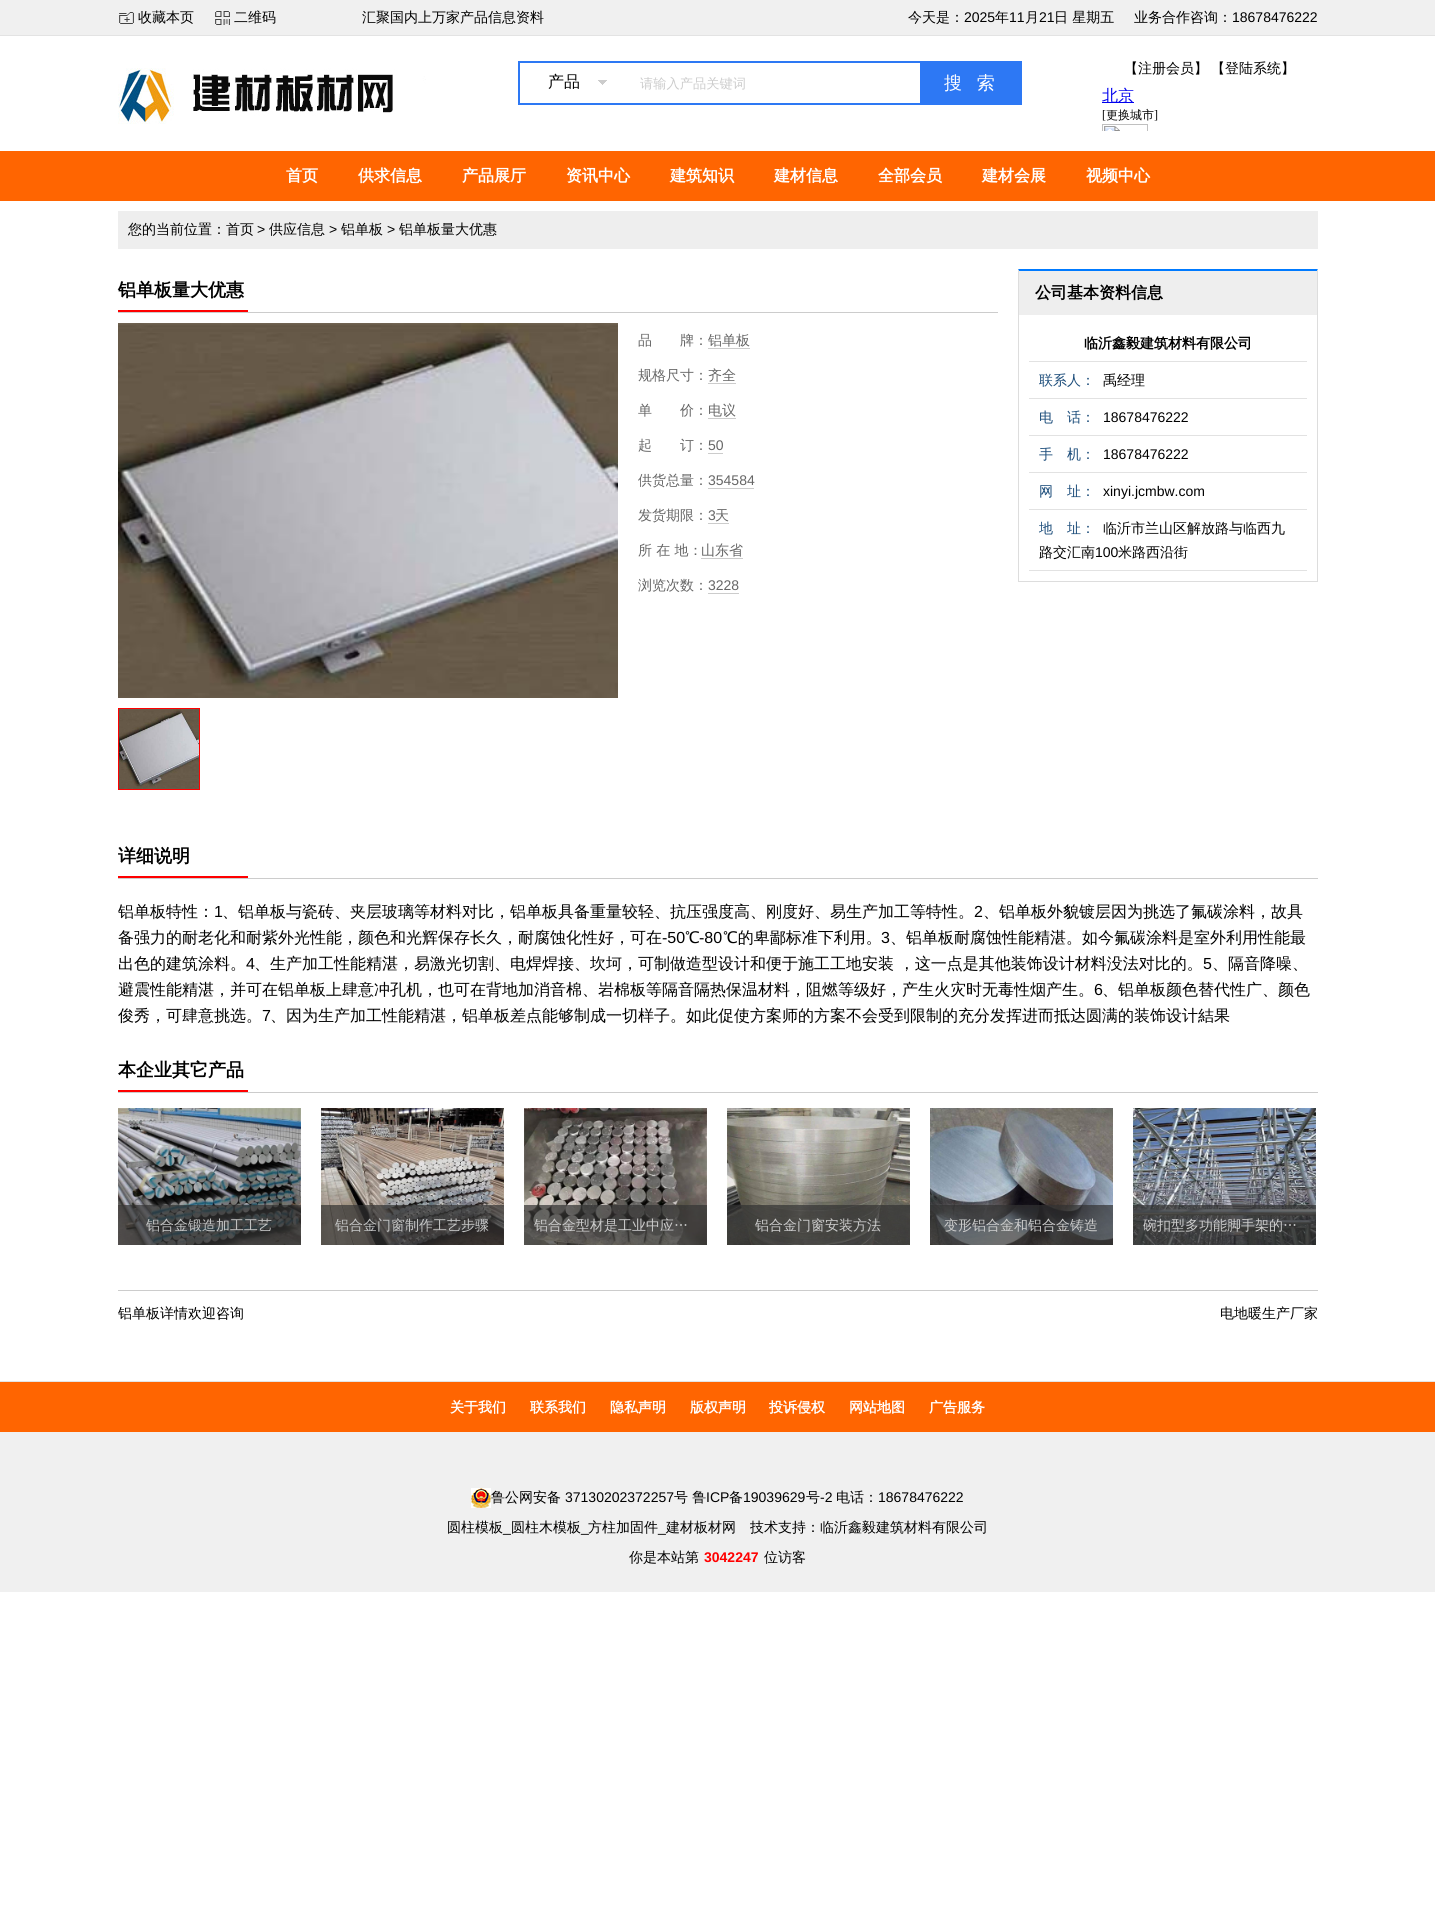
#include <cairo.h>
#include <math.h>
#include <stddef.h>


static void spaced_text(cairo_t *cr, double x, double y, const char *s, double letter, double word) {
    cairo_move_to(cr, x, y);
    while (*s) {
        char ch[5] = {0};
        int n = 0;
        do ch[n++] = *s++; while ((*s & 0xC0) == 0x80);
        cairo_show_text(cr, ch);
        cairo_rel_move_to(cr, letter + word * (*ch == ' '), 0);
    }
}

static void picture(cairo_t *cr, const char *path, double x, double y, double w, double h) {
    cairo_surface_t *image = cairo_image_surface_create_from_png(path);
    cairo_save(cr);
    cairo_set_source_surface(cr, image, x, y);
    cairo_rectangle(cr, x, y, w, h);
    cairo_fill(cr);
    cairo_restore(cr);
    cairo_surface_destroy(image);
}

int main(void) {
    cairo_surface_t *surface = cairo_image_surface_create(CAIRO_FORMAT_RGB24, 1435, 1929);
    cairo_t *cr = cairo_create(surface);
    cairo_font_options_t *options = cairo_font_options_create();
    cairo_font_options_set_hint_metrics(options, CAIRO_HINT_METRICS_OFF);
    cairo_font_options_set_hint_style(options, CAIRO_HINT_STYLE_NONE);
    cairo_set_font_options(cr, options);
    cairo_set_miter_limit(cr, 4);
    cairo_set_source_rgb(cr, 1, 1, 1);
    cairo_paint(cr);
    cairo_set_source_rgb(cr, 0.941, 0.941, 0.941);
    cairo_rectangle(cr, 0, 0, 1435, 35);
    cairo_fill(cr);
    cairo_set_source_rgb(cr, 0.89, 0.89, 0.89);
    cairo_rectangle(cr, 0, 35, 1435, 1);
    cairo_fill(cr);
    picture(cr, "img1.png", 119, 12, 15, 12);
    cairo_select_font_face(cr, "WenQuanYi Zen Hei Medium", CAIRO_FONT_SLANT_NORMAL, CAIRO_FONT_WEIGHT_NORMAL);
    cairo_set_font_size(cr, 14);
    cairo_set_source_rgb(cr, 0, 0, 0);
    cairo_move_to(cr, 138, 22);
    cairo_show_text(cr, "收藏本页");
    picture(cr, "img2.png", 215, 11, 15, 14);
    cairo_move_to(cr, 234, 22);
    cairo_show_text(cr, "二维码");
    cairo_move_to(cr, 362, 22);
    cairo_show_text(cr, "汇聚国内上万家产品信息资料");
    cairo_move_to(cr, 908, 22);
    cairo_show_text(cr, "今天是：");
    cairo_select_font_face(cr, "Liberation Sans", CAIRO_FONT_SLANT_NORMAL, CAIRO_FONT_WEIGHT_NORMAL);
    cairo_move_to(cr, 964, 22);
    cairo_show_text(cr, "2025");
    cairo_select_font_face(cr, "WenQuanYi Zen Hei Medium", CAIRO_FONT_SLANT_NORMAL, CAIRO_FONT_WEIGHT_NORMAL);
    cairo_move_to(cr, 995, 22);
    cairo_show_text(cr, "年");
    cairo_select_font_face(cr, "Liberation Sans", CAIRO_FONT_SLANT_NORMAL, CAIRO_FONT_WEIGHT_NORMAL);
    cairo_move_to(cr, 1009, 22);
    cairo_show_text(cr, "11");
    cairo_select_font_face(cr, "WenQuanYi Zen Hei Medium", CAIRO_FONT_SLANT_NORMAL, CAIRO_FONT_WEIGHT_NORMAL);
    cairo_move_to(cr, 1025, 22);
    cairo_show_text(cr, "月");
    cairo_select_font_face(cr, "Liberation Sans", CAIRO_FONT_SLANT_NORMAL, CAIRO_FONT_WEIGHT_NORMAL);
    cairo_move_to(cr, 1039, 22);
    cairo_show_text(cr, "21");
    cairo_select_font_face(cr, "WenQuanYi Zen Hei Medium", CAIRO_FONT_SLANT_NORMAL, CAIRO_FONT_WEIGHT_NORMAL);
    cairo_move_to(cr, 1054, 22);
    cairo_show_text(cr, "日 星期五");
    cairo_move_to(cr, 1134, 22);
    cairo_show_text(cr, "业务合作咨询：");
    cairo_select_font_face(cr, "Liberation Sans", CAIRO_FONT_SLANT_NORMAL, CAIRO_FONT_WEIGHT_NORMAL);
    cairo_move_to(cr, 1232, 22);
    cairo_show_text(cr, "18678476222");
    picture(cr, "img3.png", 118, 68, 308, 56);
    cairo_rectangle(cr, 519, 62, 502, 42);
    cairo_set_source_rgb(cr, 0.176, 0.471, 0.957);
    cairo_stroke(cr);
    cairo_select_font_face(cr, "WenQuanYi Zen Hei Medium", CAIRO_FONT_SLANT_NORMAL, CAIRO_FONT_WEIGHT_NORMAL);
    cairo_set_font_size(cr, 16);
    cairo_set_source_rgb(cr, 0, 0, 0);
    cairo_move_to(cr, 548, 87);
    cairo_show_text(cr, "产品");
    picture(cr, "img4.png", 598, 80, 9, 5);
    cairo_set_font_size(cr, 13.25);
    cairo_set_source_rgb(cr, 0.8, 0.8, 0.8);
    cairo_move_to(cr, 640, 88);
    cairo_show_text(cr, "请输入产品关键词");
    cairo_set_source_rgb(cr, 0.176, 0.471, 0.957);
    cairo_rectangle(cr, 920, 63, 100, 40);
    cairo_fill(cr);
    cairo_set_font_size(cr, 18);
    cairo_set_source_rgb(cr, 1, 1, 1);
    spaced_text(cr, 944, 89, "搜   索", 0, -0.5);
    cairo_set_font_size(cr, 14);
    cairo_set_source_rgb(cr, 0, 0, 0);
    cairo_move_to(cr, 1124, 73);
    cairo_show_text(cr, "【注册会员】");
    cairo_move_to(cr, 1211, 73);
    cairo_show_text(cr, "【登陆系统】");
    picture(cr, "img5.png", 1102, 87, 56, 44);
    cairo_set_source_rgb(cr, 1, 0.396, 0.004);
    cairo_rectangle(cr, 0, 151, 1435, 50);
    cairo_fill(cr);
    cairo_select_font_face(cr, "WenQuanYi Zen Hei", CAIRO_FONT_SLANT_NORMAL, CAIRO_FONT_WEIGHT_BOLD);
    cairo_set_font_size(cr, 16);
    cairo_set_source_rgb(cr, 1, 1, 1);
    cairo_move_to(cr, 286, 181);
    cairo_show_text(cr, "首页");
    cairo_move_to(cr, 358, 181);
    cairo_show_text(cr, "供求信息");
    cairo_move_to(cr, 462, 181);
    cairo_show_text(cr, "产品展厅");
    cairo_move_to(cr, 566, 181);
    cairo_show_text(cr, "资讯中心");
    cairo_move_to(cr, 670, 181);
    cairo_show_text(cr, "建筑知识");
    cairo_move_to(cr, 774, 181);
    cairo_show_text(cr, "建材信息");
    cairo_move_to(cr, 878, 181);
    cairo_show_text(cr, "全部会员");
    cairo_move_to(cr, 982, 181);
    cairo_show_text(cr, "建材会展");
    cairo_move_to(cr, 1086, 181);
    cairo_show_text(cr, "视频中心");
    cairo_set_source_rgb(cr, 0.933, 0.933, 0.933);
    cairo_rectangle(cr, 118, 211, 1200, 38);
    cairo_fill(cr);
    cairo_select_font_face(cr, "WenQuanYi Zen Hei Medium", CAIRO_FONT_SLANT_NORMAL, CAIRO_FONT_WEIGHT_NORMAL);
    cairo_set_font_size(cr, 14);
    cairo_set_source_rgb(cr, 0, 0, 0);
    cairo_move_to(cr, 128, 234);
    cairo_show_text(cr, "您的当前位置：首页");
    cairo_select_font_face(cr, "Liberation Sans", CAIRO_FONT_SLANT_NORMAL, CAIRO_FONT_WEIGHT_NORMAL);
    cairo_move_to(cr, 257, 234);
    cairo_show_text(cr, ">");
    cairo_select_font_face(cr, "WenQuanYi Zen Hei Medium", CAIRO_FONT_SLANT_NORMAL, CAIRO_FONT_WEIGHT_NORMAL);
    cairo_move_to(cr, 269, 234);
    cairo_show_text(cr, "供应信息");
    cairo_select_font_face(cr, "Liberation Sans", CAIRO_FONT_SLANT_NORMAL, CAIRO_FONT_WEIGHT_NORMAL);
    cairo_move_to(cr, 329, 234);
    cairo_show_text(cr, ">");
    cairo_select_font_face(cr, "WenQuanYi Zen Hei Medium", CAIRO_FONT_SLANT_NORMAL, CAIRO_FONT_WEIGHT_NORMAL);
    cairo_move_to(cr, 341, 234);
    cairo_show_text(cr, "铝单板");
    cairo_select_font_face(cr, "Liberation Sans", CAIRO_FONT_SLANT_NORMAL, CAIRO_FONT_WEIGHT_NORMAL);
    cairo_move_to(cr, 387, 234);
    cairo_show_text(cr, ">");
    cairo_select_font_face(cr, "WenQuanYi Zen Hei Medium", CAIRO_FONT_SLANT_NORMAL, CAIRO_FONT_WEIGHT_NORMAL);
    cairo_move_to(cr, 399, 234);
    cairo_show_text(cr, "铝单板量大优惠");
    cairo_set_source_rgb(cr, 0.8, 0.8, 0.8);
    cairo_rectangle(cr, 118, 312, 880, 1);
    cairo_fill(cr);
    cairo_select_font_face(cr, "WenQuanYi Zen Hei", CAIRO_FONT_SLANT_NORMAL, CAIRO_FONT_WEIGHT_BOLD);
    cairo_set_font_size(cr, 18);
    cairo_set_source_rgb(cr, 0, 0, 0);
    cairo_move_to(cr, 118, 296);
    cairo_show_text(cr, "铝单板量大优惠");
    cairo_set_source_rgb(cr, 1, 0, 0);
    cairo_rectangle(cr, 118, 310, 130, 2);
    cairo_fill(cr);
    picture(cr, "img6.png", 118, 323, 500, 375);
    cairo_select_font_face(cr, "WenQuanYi Zen Hei Medium", CAIRO_FONT_SLANT_NORMAL, CAIRO_FONT_WEIGHT_NORMAL);
    cairo_set_font_size(cr, 14);
    cairo_set_source_rgb(cr, 0.4, 0.4, 0.4);
    cairo_move_to(cr, 638, 345);
    cairo_show_text(cr, "品　　牌：铝单板");
    cairo_set_source_rgb(cr, 0.8, 0.8, 0.8);
    cairo_rectangle(cr, 708, 348, 42, 1);
    cairo_fill(cr);
    cairo_set_source_rgb(cr, 0.4, 0.4, 0.4);
    cairo_move_to(cr, 638, 380);
    cairo_show_text(cr, "规格尺寸：齐全");
    cairo_set_source_rgb(cr, 0.8, 0.8, 0.8);
    cairo_rectangle(cr, 708, 383, 28, 1);
    cairo_fill(cr);
    cairo_set_source_rgb(cr, 0.4, 0.4, 0.4);
    cairo_move_to(cr, 638, 415);
    cairo_show_text(cr, "单　　价：电议");
    cairo_set_source_rgb(cr, 0.8, 0.8, 0.8);
    cairo_rectangle(cr, 708, 418, 28, 1);
    cairo_fill(cr);
    cairo_set_source_rgb(cr, 0.4, 0.4, 0.4);
    cairo_move_to(cr, 638, 450);
    cairo_show_text(cr, "起　　订：");
    cairo_select_font_face(cr, "Liberation Sans", CAIRO_FONT_SLANT_NORMAL, CAIRO_FONT_WEIGHT_NORMAL);
    cairo_move_to(cr, 708, 450);
    cairo_show_text(cr, "50");
    cairo_set_source_rgb(cr, 0.8, 0.8, 0.8);
    cairo_rectangle(cr, 708, 453, 15, 1);
    cairo_fill(cr);
    cairo_select_font_face(cr, "WenQuanYi Zen Hei Medium", CAIRO_FONT_SLANT_NORMAL, CAIRO_FONT_WEIGHT_NORMAL);
    cairo_set_source_rgb(cr, 0.4, 0.4, 0.4);
    cairo_move_to(cr, 638, 485);
    cairo_show_text(cr, "供货总量：");
    cairo_select_font_face(cr, "Liberation Sans", CAIRO_FONT_SLANT_NORMAL, CAIRO_FONT_WEIGHT_NORMAL);
    cairo_move_to(cr, 708, 485);
    cairo_show_text(cr, "354584");
    cairo_set_source_rgb(cr, 0.8, 0.8, 0.8);
    cairo_rectangle(cr, 708, 488, 46, 1);
    cairo_fill(cr);
    cairo_select_font_face(cr, "WenQuanYi Zen Hei Medium", CAIRO_FONT_SLANT_NORMAL, CAIRO_FONT_WEIGHT_NORMAL);
    cairo_set_source_rgb(cr, 0.4, 0.4, 0.4);
    cairo_move_to(cr, 638, 520);
    cairo_show_text(cr, "发货期限：");
    cairo_select_font_face(cr, "Liberation Sans", CAIRO_FONT_SLANT_NORMAL, CAIRO_FONT_WEIGHT_NORMAL);
    cairo_move_to(cr, 708, 520);
    cairo_show_text(cr, "3");
    cairo_set_source_rgb(cr, 0.8, 0.8, 0.8);
    cairo_rectangle(cr, 708, 523, 21, 1);
    cairo_fill(cr);
    cairo_select_font_face(cr, "WenQuanYi Zen Hei Medium", CAIRO_FONT_SLANT_NORMAL, CAIRO_FONT_WEIGHT_NORMAL);
    cairo_set_source_rgb(cr, 0.4, 0.4, 0.4);
    cairo_move_to(cr, 715, 520);
    cairo_show_text(cr, "天");
    cairo_move_to(cr, 638, 555);
    cairo_show_text(cr, "所 在 地：");
    cairo_move_to(cr, 701, 555);
    cairo_show_text(cr, "山东省");
    cairo_set_source_rgb(cr, 0.8, 0.8, 0.8);
    cairo_rectangle(cr, 701, 558, 42, 1);
    cairo_fill(cr);
    cairo_set_source_rgb(cr, 0.4, 0.4, 0.4);
    cairo_move_to(cr, 638, 590);
    cairo_show_text(cr, "浏览次数：");
    cairo_select_font_face(cr, "Liberation Sans", CAIRO_FONT_SLANT_NORMAL, CAIRO_FONT_WEIGHT_NORMAL);
    cairo_move_to(cr, 708, 590);
    cairo_show_text(cr, "3228");
    cairo_set_source_rgb(cr, 0.8, 0.8, 0.8);
    cairo_rectangle(cr, 708, 593, 31, 1);
    cairo_fill(cr);
    cairo_rectangle(cr, 118.5, 708.5, 81, 81);
    cairo_set_source_rgb(cr, 1, 0, 0);
    cairo_set_line_width(cr, 1);
    cairo_stroke(cr);
    picture(cr, "img7.png", 119, 709, 80, 80);
    cairo_set_source_rgb(cr, 0.933, 0.933, 0.933);
    cairo_rectangle(cr, 1018, 269, 300, 46);
    cairo_fill(cr);
    cairo_set_source_rgb(cr, 0, 0.478, 1);
    cairo_new_path(cr);
    cairo_move_to(cr, 1018, 269);
    cairo_line_to(cr, 1318, 269);
    cairo_line_to(cr, 1317, 271);
    cairo_line_to(cr, 1019, 271);
    cairo_close_path(cr);
    cairo_fill(cr);
    cairo_set_source_rgb(cr, 0.867, 0.867, 0.867);
    cairo_new_path(cr);
    cairo_move_to(cr, 1318, 269);
    cairo_line_to(cr, 1318, 315);
    cairo_line_to(cr, 1317, 315);
    cairo_line_to(cr, 1317, 271);
    cairo_close_path(cr);
    cairo_fill(cr);
    cairo_new_path(cr);
    cairo_move_to(cr, 1018, 315);
    cairo_line_to(cr, 1018, 269);
    cairo_line_to(cr, 1019, 271);
    cairo_line_to(cr, 1019, 315);
    cairo_close_path(cr);
    cairo_fill(cr);
    cairo_select_font_face(cr, "WenQuanYi Zen Hei", CAIRO_FONT_SLANT_NORMAL, CAIRO_FONT_WEIGHT_BOLD);
    cairo_set_font_size(cr, 16);
    cairo_set_source_rgb(cr, 0, 0, 0);
    cairo_move_to(cr, 1035, 298);
    cairo_show_text(cr, "公司基本资料信息");
    cairo_set_source_rgb(cr, 0.867, 0.867, 0.867);
    cairo_rectangle(cr, 1317, 315, 1, 267);
    cairo_fill(cr);
    cairo_rectangle(cr, 1018, 581, 300, 1);
    cairo_fill(cr);
    cairo_rectangle(cr, 1018, 315, 1, 267);
    cairo_fill(cr);
    cairo_set_source_rgb(cr, 0.886, 0.886, 0.886);
    cairo_rectangle(cr, 1029, 361, 278, 1);
    cairo_fill(cr);
    cairo_set_font_size(cr, 14);
    cairo_set_source_rgb(cr, 0, 0, 0);
    cairo_move_to(cr, 1084, 348);
    cairo_show_text(cr, "临沂鑫毅建筑材料有限公司");
    cairo_set_source_rgb(cr, 0.886, 0.886, 0.886);
    cairo_rectangle(cr, 1029, 398, 278, 1);
    cairo_fill(cr);
    cairo_select_font_face(cr, "WenQuanYi Zen Hei Medium", CAIRO_FONT_SLANT_NORMAL, CAIRO_FONT_WEIGHT_NORMAL);
    cairo_set_source_rgb(cr, 0.106, 0.298, 0.478);
    cairo_move_to(cr, 1039, 385);
    cairo_show_text(cr, "联系人：");
    cairo_set_source_rgb(cr, 0, 0, 0);
    cairo_move_to(cr, 1103, 385);
    cairo_show_text(cr, "禹经理");
    cairo_set_source_rgb(cr, 0.886, 0.886, 0.886);
    cairo_rectangle(cr, 1029, 435, 278, 1);
    cairo_fill(cr);
    cairo_set_source_rgb(cr, 0.106, 0.298, 0.478);
    cairo_move_to(cr, 1039, 422);
    cairo_show_text(cr, "电　话：");
    cairo_select_font_face(cr, "Liberation Sans", CAIRO_FONT_SLANT_NORMAL, CAIRO_FONT_WEIGHT_NORMAL);
    cairo_set_source_rgb(cr, 0, 0, 0);
    cairo_move_to(cr, 1103, 422);
    cairo_show_text(cr, "18678476222");
    cairo_set_source_rgb(cr, 0.886, 0.886, 0.886);
    cairo_rectangle(cr, 1029, 472, 278, 1);
    cairo_fill(cr);
    cairo_select_font_face(cr, "WenQuanYi Zen Hei Medium", CAIRO_FONT_SLANT_NORMAL, CAIRO_FONT_WEIGHT_NORMAL);
    cairo_set_source_rgb(cr, 0.106, 0.298, 0.478);
    cairo_move_to(cr, 1039, 459);
    cairo_show_text(cr, "手　机：");
    cairo_select_font_face(cr, "Liberation Sans", CAIRO_FONT_SLANT_NORMAL, CAIRO_FONT_WEIGHT_NORMAL);
    cairo_set_source_rgb(cr, 0, 0, 0);
    cairo_move_to(cr, 1103, 459);
    cairo_show_text(cr, "18678476222");
    cairo_set_source_rgb(cr, 0.886, 0.886, 0.886);
    cairo_rectangle(cr, 1029, 509, 278, 1);
    cairo_fill(cr);
    cairo_select_font_face(cr, "WenQuanYi Zen Hei Medium", CAIRO_FONT_SLANT_NORMAL, CAIRO_FONT_WEIGHT_NORMAL);
    cairo_set_source_rgb(cr, 0.106, 0.298, 0.478);
    cairo_move_to(cr, 1039, 496);
    cairo_show_text(cr, "网　址：");
    cairo_select_font_face(cr, "Liberation Sans", CAIRO_FONT_SLANT_NORMAL, CAIRO_FONT_WEIGHT_NORMAL);
    cairo_set_source_rgb(cr, 0, 0, 0);
    cairo_move_to(cr, 1103, 496);
    cairo_show_text(cr, "xinyi.jcmbw.com");
    cairo_set_source_rgb(cr, 0.886, 0.886, 0.886);
    cairo_rectangle(cr, 1029, 570, 278, 1);
    cairo_fill(cr);
    cairo_select_font_face(cr, "WenQuanYi Zen Hei Medium", CAIRO_FONT_SLANT_NORMAL, CAIRO_FONT_WEIGHT_NORMAL);
    cairo_set_source_rgb(cr, 0.106, 0.298, 0.478);
    cairo_move_to(cr, 1039, 533);
    cairo_show_text(cr, "地　址：");
    cairo_set_source_rgb(cr, 0, 0, 0);
    cairo_move_to(cr, 1103, 533);
    cairo_show_text(cr, "临沂市兰山区解放路与临西九");
    cairo_move_to(cr, 1039, 557);
    cairo_show_text(cr, "路交汇南");
    cairo_select_font_face(cr, "Liberation Sans", CAIRO_FONT_SLANT_NORMAL, CAIRO_FONT_WEIGHT_NORMAL);
    cairo_move_to(cr, 1095, 557);
    cairo_show_text(cr, "100");
    cairo_select_font_face(cr, "WenQuanYi Zen Hei Medium", CAIRO_FONT_SLANT_NORMAL, CAIRO_FONT_WEIGHT_NORMAL);
    cairo_move_to(cr, 1118, 557);
    cairo_show_text(cr, "米路西沿街");
    cairo_set_source_rgb(cr, 0.8, 0.8, 0.8);
    cairo_rectangle(cr, 118, 878, 1200, 1);
    cairo_fill(cr);
    cairo_select_font_face(cr, "WenQuanYi Zen Hei", CAIRO_FONT_SLANT_NORMAL, CAIRO_FONT_WEIGHT_BOLD);
    cairo_set_font_size(cr, 18);
    cairo_set_source_rgb(cr, 0, 0, 0);
    cairo_move_to(cr, 118, 862);
    cairo_show_text(cr, "详细说明");
    cairo_set_source_rgb(cr, 1, 0, 0);
    cairo_rectangle(cr, 118, 876, 130, 2);
    cairo_fill(cr);
    cairo_select_font_face(cr, "WenQuanYi Zen Hei Medium", CAIRO_FONT_SLANT_NORMAL, CAIRO_FONT_WEIGHT_NORMAL);
    cairo_set_font_size(cr, 16);
    cairo_set_source_rgb(cr, 0, 0, 0);
    cairo_move_to(cr, 118, 917);
    cairo_show_text(cr, "铝单板特性：");
    cairo_select_font_face(cr, "Liberation Sans", CAIRO_FONT_SLANT_NORMAL, CAIRO_FONT_WEIGHT_NORMAL);
    cairo_move_to(cr, 214, 917);
    cairo_show_text(cr, "1");
    cairo_select_font_face(cr, "WenQuanYi Zen Hei Medium", CAIRO_FONT_SLANT_NORMAL, CAIRO_FONT_WEIGHT_NORMAL);
    cairo_move_to(cr, 222, 917);
    cairo_show_text(cr, "、铝单板与瓷砖、夹层玻璃等材料对比，铝单板具备重量较轻、抗压强度高、刚度好、易生产加工等特性。");
    cairo_select_font_face(cr, "Liberation Sans", CAIRO_FONT_SLANT_NORMAL, CAIRO_FONT_WEIGHT_NORMAL);
    cairo_move_to(cr, 974, 917);
    cairo_show_text(cr, "2");
    cairo_select_font_face(cr, "WenQuanYi Zen Hei Medium", CAIRO_FONT_SLANT_NORMAL, CAIRO_FONT_WEIGHT_NORMAL);
    cairo_move_to(cr, 983, 917);
    cairo_show_text(cr, "、铝单板外貌镀层因为挑选了氟碳涂料，故具");
    cairo_move_to(cr, 118, 943);
    cairo_show_text(cr, "备强力的耐老化和耐紫外光性能，颜色和光辉保存长久，耐腐蚀化性好，可在");
    cairo_select_font_face(cr, "Liberation Sans", CAIRO_FONT_SLANT_NORMAL, CAIRO_FONT_WEIGHT_NORMAL);
    cairo_move_to(cr, 662, 943);
    cairo_show_text(cr, "-50");
    cairo_select_font_face(cr, "WenQuanYi Zen Hei Medium", CAIRO_FONT_SLANT_NORMAL, CAIRO_FONT_WEIGHT_NORMAL);
    cairo_move_to(cr, 685, 943);
    cairo_show_text(cr, "℃");
    cairo_select_font_face(cr, "Liberation Sans", CAIRO_FONT_SLANT_NORMAL, CAIRO_FONT_WEIGHT_NORMAL);
    cairo_move_to(cr, 699, 943);
    cairo_show_text(cr, "-80");
    cairo_select_font_face(cr, "WenQuanYi Zen Hei Medium", CAIRO_FONT_SLANT_NORMAL, CAIRO_FONT_WEIGHT_NORMAL);
    cairo_move_to(cr, 723, 943);
    cairo_show_text(cr, "℃的卑鄙标准下利用。");
    cairo_select_font_face(cr, "Liberation Sans", CAIRO_FONT_SLANT_NORMAL, CAIRO_FONT_WEIGHT_NORMAL);
    cairo_move_to(cr, 881, 943);
    cairo_show_text(cr, "3");
    cairo_select_font_face(cr, "WenQuanYi Zen Hei Medium", CAIRO_FONT_SLANT_NORMAL, CAIRO_FONT_WEIGHT_NORMAL);
    cairo_move_to(cr, 890, 943);
    cairo_show_text(cr, "、铝单板耐腐蚀性能精湛。如今氟碳涂料是室外利用性能最");
    cairo_move_to(cr, 118, 969);
    cairo_show_text(cr, "出色的建筑涂料。");
    cairo_select_font_face(cr, "Liberation Sans", CAIRO_FONT_SLANT_NORMAL, CAIRO_FONT_WEIGHT_NORMAL);
    cairo_move_to(cr, 246, 969);
    cairo_show_text(cr, "4");
    cairo_select_font_face(cr, "WenQuanYi Zen Hei Medium", CAIRO_FONT_SLANT_NORMAL, CAIRO_FONT_WEIGHT_NORMAL);
    cairo_move_to(cr, 254, 969);
    cairo_show_text(cr, "、生产加工性能精湛，易激光切割、电焊焊接、坎坷，可制做造型设计和便于施工工地安装 ，这一点是其他装饰设计材料没法对比的。");
    cairo_select_font_face(cr, "Liberation Sans", CAIRO_FONT_SLANT_NORMAL, CAIRO_FONT_WEIGHT_NORMAL);
    cairo_move_to(cr, 1203, 969);
    cairo_show_text(cr, "5");
    cairo_select_font_face(cr, "WenQuanYi Zen Hei Medium", CAIRO_FONT_SLANT_NORMAL, CAIRO_FONT_WEIGHT_NORMAL);
    cairo_move_to(cr, 1212, 969);
    cairo_show_text(cr, "、隔音降噪、");
    cairo_move_to(cr, 118, 995);
    cairo_show_text(cr, "避震性能精湛，并可在铝单板上肆意冲孔机，也可在背地加消音棉、岩棉板等隔音隔热保温材料，阻燃等级好，产生火灾时无毒性烟产生。");
    cairo_select_font_face(cr, "Liberation Sans", CAIRO_FONT_SLANT_NORMAL, CAIRO_FONT_WEIGHT_NORMAL);
    cairo_move_to(cr, 1094, 995);
    cairo_show_text(cr, "6");
    cairo_select_font_face(cr, "WenQuanYi Zen Hei Medium", CAIRO_FONT_SLANT_NORMAL, CAIRO_FONT_WEIGHT_NORMAL);
    cairo_move_to(cr, 1102, 995);
    cairo_show_text(cr, "、铝单板颜色替代性广、颜色");
    cairo_move_to(cr, 118, 1021);
    cairo_show_text(cr, "俊秀，可肆意挑选。");
    cairo_select_font_face(cr, "Liberation Sans", CAIRO_FONT_SLANT_NORMAL, CAIRO_FONT_WEIGHT_NORMAL);
    cairo_move_to(cr, 262, 1021);
    cairo_show_text(cr, "7");
    cairo_select_font_face(cr, "WenQuanYi Zen Hei Medium", CAIRO_FONT_SLANT_NORMAL, CAIRO_FONT_WEIGHT_NORMAL);
    cairo_move_to(cr, 270, 1021);
    cairo_show_text(cr, "、因为生产加工性能精湛，铝单板差点能够制成一切样子。如此促使方案师的方案不会受到限制的充分发挥进而抵达圆满的装饰设计結果");
    cairo_set_source_rgb(cr, 0.8, 0.8, 0.8);
    cairo_rectangle(cr, 118, 1092, 1200, 1);
    cairo_fill(cr);
    cairo_select_font_face(cr, "WenQuanYi Zen Hei", CAIRO_FONT_SLANT_NORMAL, CAIRO_FONT_WEIGHT_BOLD);
    cairo_set_font_size(cr, 18);
    cairo_set_source_rgb(cr, 0, 0, 0);
    cairo_move_to(cr, 118, 1076);
    cairo_show_text(cr, "本企业其它产品");
    cairo_set_source_rgb(cr, 1, 0, 0);
    cairo_rectangle(cr, 118, 1090, 130, 2);
    cairo_fill(cr);
    picture(cr, "img8.png", 118, 1108, 183, 137);
    cairo_set_source_rgba(cr, 0.2, 0.2, 0.2, 0.7);
    cairo_rectangle(cr, 118, 1205, 183, 40);
    cairo_fill(cr);
    cairo_select_font_face(cr, "WenQuanYi Zen Hei Medium", CAIRO_FONT_SLANT_NORMAL, CAIRO_FONT_WEIGHT_NORMAL);
    cairo_set_font_size(cr, 14);
    cairo_set_source_rgb(cr, 0.769, 0.773, 0.773);
    cairo_move_to(cr, 146, 1230);
    cairo_show_text(cr, "铝合金锻造加工工艺");
    picture(cr, "img9.png", 321, 1108, 183, 137);
    cairo_set_source_rgba(cr, 0.2, 0.2, 0.2, 0.7);
    cairo_rectangle(cr, 321, 1205, 183, 40);
    cairo_fill(cr);
    cairo_set_source_rgb(cr, 0.769, 0.773, 0.773);
    cairo_move_to(cr, 335, 1230);
    cairo_show_text(cr, "铝合金门窗制作工艺步骤");
    picture(cr, "img10.png", 524, 1108, 183, 137);
    cairo_set_source_rgba(cr, 0.2, 0.2, 0.2, 0.7);
    cairo_rectangle(cr, 524, 1205, 183, 40);
    cairo_fill(cr);
    cairo_set_source_rgb(cr, 0.8, 0.8, 0.8);
    cairo_move_to(cr, 534, 1230);
    cairo_show_text(cr, "铝合金型材是工业中应…");
    picture(cr, "img11.png", 727, 1108, 183, 137);
    cairo_set_source_rgba(cr, 0.2, 0.2, 0.2, 0.7);
    cairo_rectangle(cr, 727, 1205, 183, 40);
    cairo_fill(cr);
    cairo_set_source_rgb(cr, 0.8, 0.8, 0.8);
    cairo_move_to(cr, 755, 1230);
    cairo_show_text(cr, "铝合金门窗安装方法");
    picture(cr, "img12.png", 930, 1108, 183, 137);
    cairo_set_source_rgba(cr, 0.2, 0.2, 0.2, 0.7);
    cairo_rectangle(cr, 930, 1205, 183, 40);
    cairo_fill(cr);
    cairo_set_source_rgb(cr, 0.8, 0.8, 0.8);
    cairo_move_to(cr, 944, 1230);
    cairo_show_text(cr, "变形铝合金和铝合金铸造");
    picture(cr, "img13.png", 1133, 1108, 183, 137);
    cairo_set_source_rgba(cr, 0.2, 0.2, 0.2, 0.7);
    cairo_rectangle(cr, 1133, 1205, 183, 40);
    cairo_fill(cr);
    cairo_set_source_rgb(cr, 0.8, 0.8, 0.8);
    cairo_move_to(cr, 1143, 1230);
    cairo_show_text(cr, "碗扣型多功能脚手架的…");
    cairo_rectangle(cr, 118, 1290, 1200, 1);
    cairo_fill(cr);
    cairo_set_source_rgb(cr, 0, 0, 0);
    cairo_move_to(cr, 118, 1318);
    cairo_show_text(cr, "铝单板详情欢迎咨询");
    cairo_move_to(cr, 1220, 1318);
    cairo_show_text(cr, "电地暖生产厂家");
    cairo_set_source_rgb(cr, 0.941, 0.941, 0.941);
    cairo_rectangle(cr, 0, 1432, 1435, 160);
    cairo_fill(cr);
    cairo_set_source_rgb(cr, 0.894, 0.894, 0.894);
    cairo_rectangle(cr, 0, 1381, 1435, 1);
    cairo_fill(cr);
    cairo_set_source_rgb(cr, 1, 0.396, 0.004);
    cairo_rectangle(cr, 0, 1382, 1435, 50);
    cairo_fill(cr);
    cairo_select_font_face(cr, "WenQuanYi Zen Hei", CAIRO_FONT_SLANT_NORMAL, CAIRO_FONT_WEIGHT_BOLD);
    cairo_set_source_rgb(cr, 1, 1, 1);
    cairo_move_to(cr, 450, 1412);
    cairo_show_text(cr, "关于我们");
    cairo_move_to(cr, 530, 1412);
    cairo_show_text(cr, "联系我们");
    cairo_move_to(cr, 610, 1412);
    cairo_show_text(cr, "隐私声明");
    cairo_move_to(cr, 690, 1412);
    cairo_show_text(cr, "版权声明");
    cairo_move_to(cr, 769, 1412);
    cairo_show_text(cr, "投诉侵权");
    cairo_move_to(cr, 849, 1412);
    cairo_show_text(cr, "网站地图");
    cairo_move_to(cr, 929, 1412);
    cairo_show_text(cr, "广告服务");
    picture(cr, "img14.png", 471, 1488, 20, 20);
    cairo_select_font_face(cr, "WenQuanYi Zen Hei Medium", CAIRO_FONT_SLANT_NORMAL, CAIRO_FONT_WEIGHT_NORMAL);
    cairo_set_source_rgb(cr, 0, 0, 0);
    cairo_move_to(cr, 491, 1502);
    cairo_show_text(cr, "鲁公网安备");
    cairo_select_font_face(cr, "Liberation Sans", CAIRO_FONT_SLANT_NORMAL, CAIRO_FONT_WEIGHT_NORMAL);
    cairo_move_to(cr, 565, 1502);
    cairo_show_text(cr, "37130202372257");
    cairo_select_font_face(cr, "WenQuanYi Zen Hei Medium", CAIRO_FONT_SLANT_NORMAL, CAIRO_FONT_WEIGHT_NORMAL);
    cairo_move_to(cr, 674, 1502);
    cairo_show_text(cr, "号 鲁");
    cairo_select_font_face(cr, "Liberation Sans", CAIRO_FONT_SLANT_NORMAL, CAIRO_FONT_WEIGHT_NORMAL);
    cairo_move_to(cr, 706, 1502);
    cairo_show_text(cr, "ICP");
    cairo_select_font_face(cr, "WenQuanYi Zen Hei Medium", CAIRO_FONT_SLANT_NORMAL, CAIRO_FONT_WEIGHT_NORMAL);
    cairo_move_to(cr, 729, 1502);
    cairo_show_text(cr, "备");
    cairo_select_font_face(cr, "Liberation Sans", CAIRO_FONT_SLANT_NORMAL, CAIRO_FONT_WEIGHT_NORMAL);
    cairo_move_to(cr, 743, 1502);
    cairo_show_text(cr, "19039629");
    cairo_select_font_face(cr, "WenQuanYi Zen Hei Medium", CAIRO_FONT_SLANT_NORMAL, CAIRO_FONT_WEIGHT_NORMAL);
    cairo_move_to(cr, 806, 1502);
    cairo_show_text(cr, "号");
    cairo_select_font_face(cr, "Liberation Sans", CAIRO_FONT_SLANT_NORMAL, CAIRO_FONT_WEIGHT_NORMAL);
    cairo_move_to(cr, 820, 1502);
    cairo_show_text(cr, "-2");
    cairo_select_font_face(cr, "WenQuanYi Zen Hei Medium", CAIRO_FONT_SLANT_NORMAL, CAIRO_FONT_WEIGHT_NORMAL);
    cairo_move_to(cr, 836, 1502);
    cairo_show_text(cr, "电话：");
    cairo_select_font_face(cr, "Liberation Sans", CAIRO_FONT_SLANT_NORMAL, CAIRO_FONT_WEIGHT_NORMAL);
    cairo_move_to(cr, 878, 1502);
    cairo_show_text(cr, "18678476222");
    cairo_select_font_face(cr, "WenQuanYi Zen Hei Medium", CAIRO_FONT_SLANT_NORMAL, CAIRO_FONT_WEIGHT_NORMAL);
    cairo_move_to(cr, 447, 1532);
    cairo_show_text(cr, "圆柱模板");
    cairo_select_font_face(cr, "Liberation Sans", CAIRO_FONT_SLANT_NORMAL, CAIRO_FONT_WEIGHT_NORMAL);
    cairo_move_to(cr, 503, 1532);
    cairo_show_text(cr, "_");
    cairo_select_font_face(cr, "WenQuanYi Zen Hei Medium", CAIRO_FONT_SLANT_NORMAL, CAIRO_FONT_WEIGHT_NORMAL);
    cairo_move_to(cr, 511, 1532);
    cairo_show_text(cr, "圆柱木模板");
    cairo_select_font_face(cr, "Liberation Sans", CAIRO_FONT_SLANT_NORMAL, CAIRO_FONT_WEIGHT_NORMAL);
    cairo_move_to(cr, 581, 1532);
    cairo_show_text(cr, "_");
    cairo_select_font_face(cr, "WenQuanYi Zen Hei Medium", CAIRO_FONT_SLANT_NORMAL, CAIRO_FONT_WEIGHT_NORMAL);
    cairo_move_to(cr, 588, 1532);
    cairo_show_text(cr, "方柱加固件");
    cairo_select_font_face(cr, "Liberation Sans", CAIRO_FONT_SLANT_NORMAL, CAIRO_FONT_WEIGHT_NORMAL);
    cairo_move_to(cr, 658, 1532);
    cairo_show_text(cr, "_");
    cairo_select_font_face(cr, "WenQuanYi Zen Hei Medium", CAIRO_FONT_SLANT_NORMAL, CAIRO_FONT_WEIGHT_NORMAL);
    cairo_move_to(cr, 666, 1532);
    cairo_show_text(cr, "建材板材网");
    cairo_move_to(cr, 750, 1532);
    cairo_show_text(cr, "技术支持：临沂鑫毅建筑材料有限公司");
    cairo_move_to(cr, 629, 1562);
    cairo_show_text(cr, "你是本站第");
    cairo_select_font_face(cr, "Liberation Sans", CAIRO_FONT_SLANT_NORMAL, CAIRO_FONT_WEIGHT_BOLD);
    cairo_set_source_rgb(cr, 1, 0, 0);
    cairo_move_to(cr, 704, 1562);
    cairo_show_text(cr, "3042247");
    cairo_select_font_face(cr, "WenQuanYi Zen Hei Medium", CAIRO_FONT_SLANT_NORMAL, CAIRO_FONT_WEIGHT_NORMAL);
    cairo_set_source_rgb(cr, 0, 0, 0);
    cairo_move_to(cr, 764, 1562);
    cairo_show_text(cr, "位访客");
    cairo_surface_write_to_png(surface, "page.png");
    cairo_font_options_destroy(options);
    cairo_destroy(cr);
    cairo_surface_destroy(surface);
    return 0;
}
